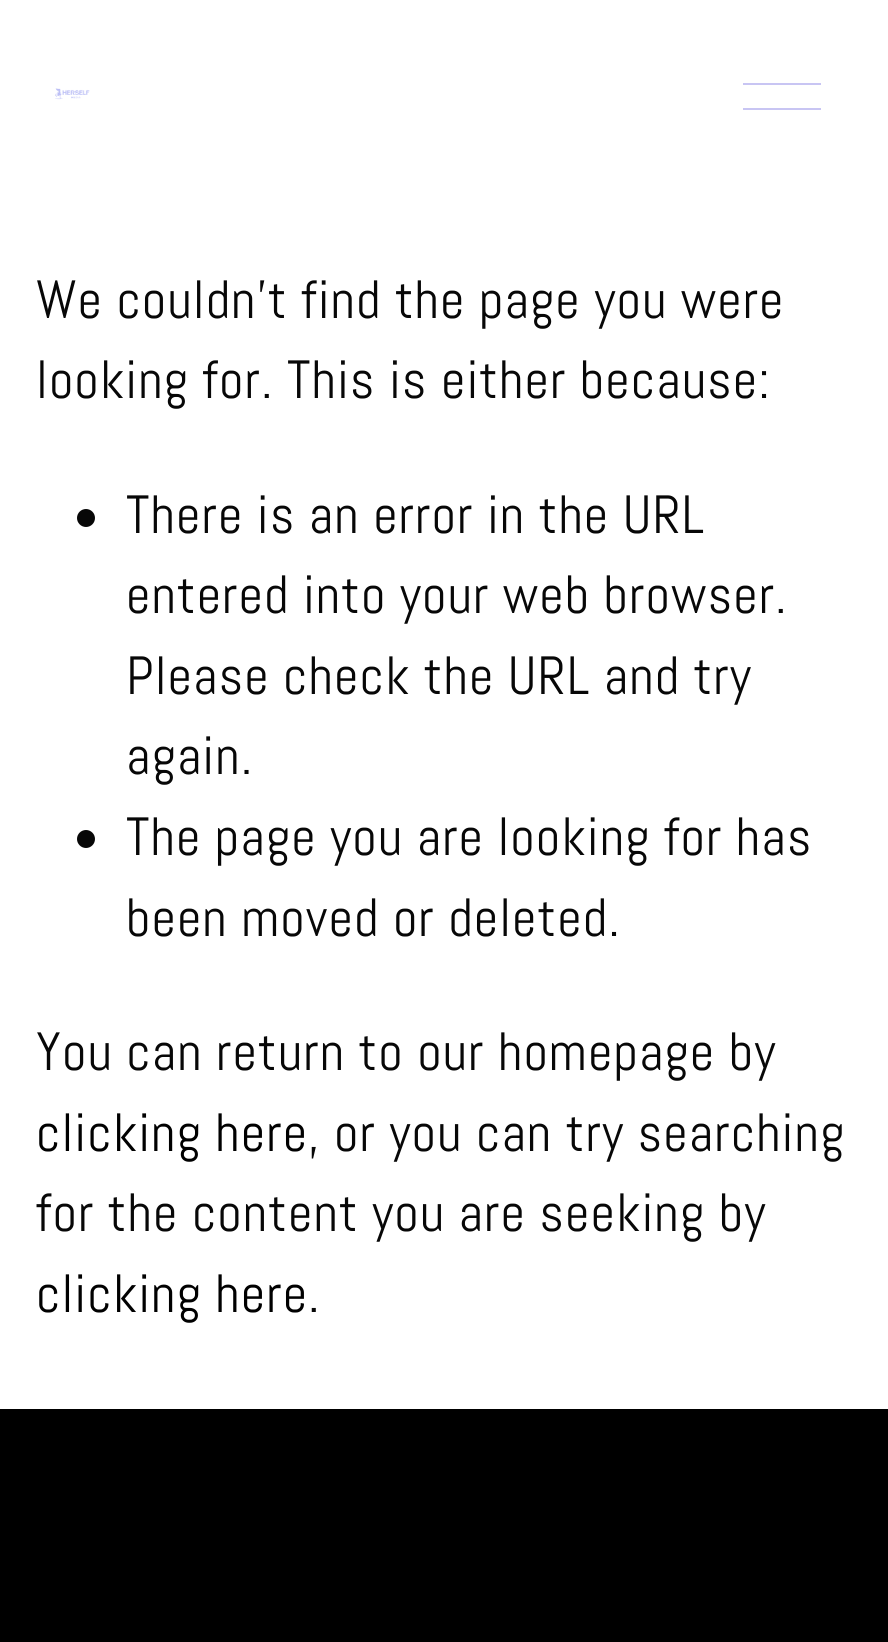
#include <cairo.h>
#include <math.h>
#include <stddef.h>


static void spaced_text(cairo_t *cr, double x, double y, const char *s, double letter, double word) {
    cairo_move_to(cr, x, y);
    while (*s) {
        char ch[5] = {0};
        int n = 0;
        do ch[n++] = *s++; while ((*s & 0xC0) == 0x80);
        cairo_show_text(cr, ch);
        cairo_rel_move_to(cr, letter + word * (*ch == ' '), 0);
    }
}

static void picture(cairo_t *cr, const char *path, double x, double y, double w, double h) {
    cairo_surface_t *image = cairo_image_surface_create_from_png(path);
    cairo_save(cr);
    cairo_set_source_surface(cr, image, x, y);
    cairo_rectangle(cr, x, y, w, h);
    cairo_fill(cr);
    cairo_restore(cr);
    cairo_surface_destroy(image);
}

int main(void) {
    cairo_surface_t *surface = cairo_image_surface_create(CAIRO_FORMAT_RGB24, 888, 1642);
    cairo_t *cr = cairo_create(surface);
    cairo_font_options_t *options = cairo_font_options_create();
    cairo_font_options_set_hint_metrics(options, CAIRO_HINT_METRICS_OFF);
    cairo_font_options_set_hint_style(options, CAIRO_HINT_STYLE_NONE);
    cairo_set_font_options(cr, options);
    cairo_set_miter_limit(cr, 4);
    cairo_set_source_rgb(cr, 1, 1, 1);
    cairo_paint(cr);
    picture(cr, "img1.png", 55, 88, 35, 12);
    cairo_set_source_rgb(cr, 0.784, 0.773, 0.953);
    cairo_rectangle(cr, 743, 83, 78, 2);
    cairo_fill(cr);
    cairo_rectangle(cr, 743, 108, 78, 2);
    cairo_fill(cr);
    cairo_select_font_face(cr, "Abel", CAIRO_FONT_SLANT_NORMAL, CAIRO_FONT_WEIGHT_NORMAL);
    cairo_set_font_size(cr, 53.75);
    cairo_set_source_rgb(cr, 0.031, 0.031, 0.031);
    spaced_text(cr, 36, 318, "We couldn't find the page you were", 1.05, 0);
    spaced_text(cr, 36, 398, "looking for. This is either because:", 1.05, 0);
    cairo_new_path(cr);
    cairo_arc(cr, 86, 518, 9, 0, 2 * M_PI);
    cairo_fill(cr);
    spaced_text(cr, 126, 533, "There is an error in the URL", 1.05, 0);
    spaced_text(cr, 126, 613, "entered into your web browser.", 1.05, 0);
    spaced_text(cr, 126, 694, "Please check the URL and try", 1.05, 0);
    spaced_text(cr, 126, 774, "again.", 1.05, 0);
    cairo_new_path(cr);
    cairo_arc(cr, 86, 839, 9, 0, 2 * M_PI);
    cairo_fill(cr);
    spaced_text(cr, 126, 855, "The page you are looking for has", 1.05, 0);
    spaced_text(cr, 126, 936, "been moved or deleted.", 1.05, 0);
    spaced_text(cr, 36, 1070, "You can return to our homepage by", 1.05, 0);
    cairo_set_source_rgb(cr, 0, 0, 0);
    spaced_text(cr, 36, 1151, "clicking here", 1.05, 0);
    cairo_set_source_rgb(cr, 0.031, 0.031, 0.031);
    spaced_text(cr, 308, 1151, ", or you can try searching", 1.05, 0);
    spaced_text(cr, 36, 1231, "for the content you are seeking by", 1.05, 0);
    cairo_set_source_rgb(cr, 0, 0, 0);
    spaced_text(cr, 36, 1312, "clicking here", 1.05, 0);
    cairo_set_source_rgb(cr, 0.031, 0.031, 0.031);
    spaced_text(cr, 308, 1312, ".", 1.05, 0);
    cairo_set_source_rgb(cr, 0, 0, 0);
    cairo_rectangle(cr, 0, 1409, 888, 233);
    cairo_fill(cr);
    cairo_surface_write_to_png(surface, "page.png");
    cairo_font_options_destroy(options);
    cairo_destroy(cr);
    cairo_surface_destroy(surface);
    return 0;
}
